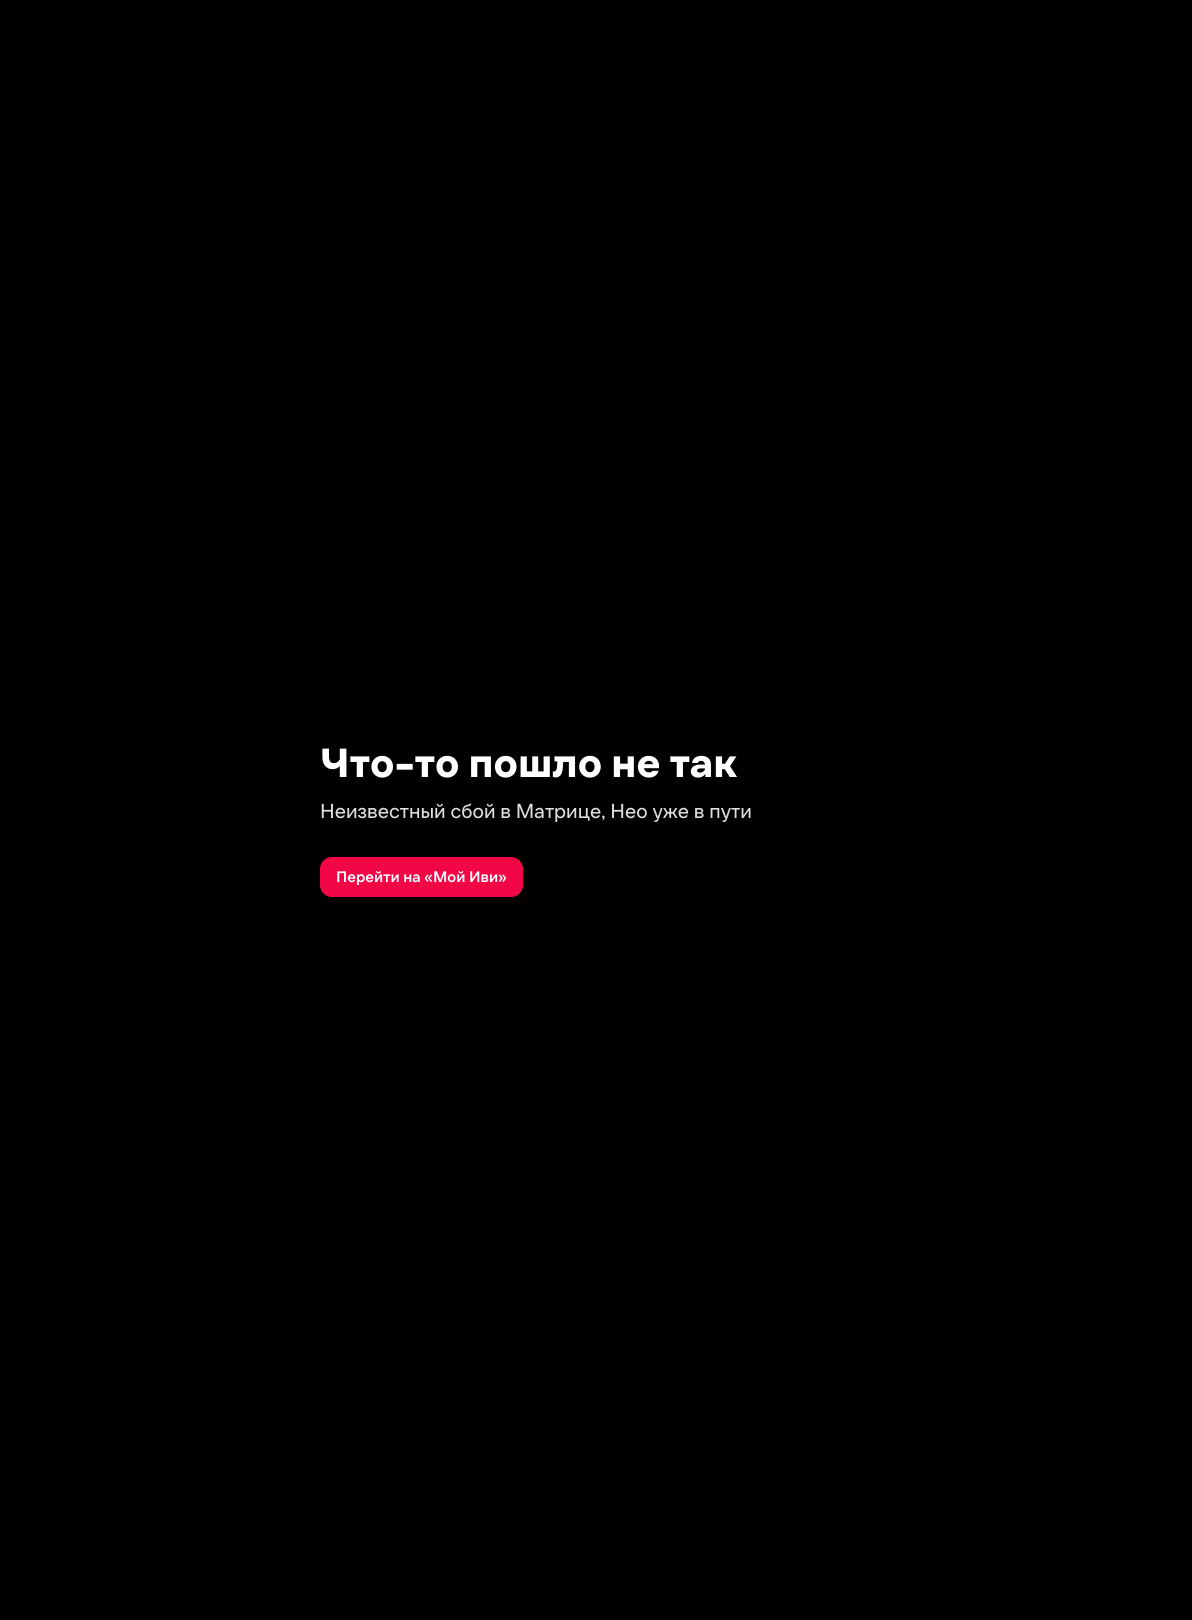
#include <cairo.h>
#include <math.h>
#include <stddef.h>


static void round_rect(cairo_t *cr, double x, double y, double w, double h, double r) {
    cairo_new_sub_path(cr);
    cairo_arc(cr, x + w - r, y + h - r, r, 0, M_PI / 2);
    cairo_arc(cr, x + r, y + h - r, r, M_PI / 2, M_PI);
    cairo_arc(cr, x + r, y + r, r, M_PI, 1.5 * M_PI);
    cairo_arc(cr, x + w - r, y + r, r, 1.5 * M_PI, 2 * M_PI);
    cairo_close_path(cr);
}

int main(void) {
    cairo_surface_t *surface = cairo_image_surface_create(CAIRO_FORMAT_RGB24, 1192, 1620);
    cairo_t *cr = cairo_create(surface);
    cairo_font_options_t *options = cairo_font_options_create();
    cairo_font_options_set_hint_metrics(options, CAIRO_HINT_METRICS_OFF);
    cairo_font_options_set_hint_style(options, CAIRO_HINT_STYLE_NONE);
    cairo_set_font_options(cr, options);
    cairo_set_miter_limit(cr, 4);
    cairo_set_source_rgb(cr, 0, 0, 0);
    cairo_paint(cr);
    cairo_select_font_face(cr, "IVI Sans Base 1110", CAIRO_FONT_SLANT_NORMAL, CAIRO_FONT_WEIGHT_BOLD);
    cairo_set_font_size(cr, 40);
    cairo_set_source_rgb(cr, 1, 1, 1);
    cairo_move_to(cr, 320, 777);
    cairo_show_text(cr, "Что-то пошло не так");
    cairo_select_font_face(cr, "IVI Sans Base 1110", CAIRO_FONT_SLANT_NORMAL, CAIRO_FONT_WEIGHT_NORMAL);
    cairo_set_font_size(cr, 20);
    cairo_set_source_rgb(cr, 0.878, 0.878, 0.878);
    cairo_move_to(cr, 320, 818);
    cairo_show_text(cr, "Неизвестный сбой в Матрице, Нео уже в пути");
    cairo_set_source_rgb(cr, 0.953, 0.027, 0.271);
    round_rect(cr, 320.5, 857.5, 202, 39, 11.5);
    cairo_fill_preserve(cr);
    cairo_set_line_width(cr, 1);
    cairo_stroke(cr);
    cairo_select_font_face(cr, "IVI Sans Base 1110 Medium", CAIRO_FONT_SLANT_NORMAL, CAIRO_FONT_WEIGHT_NORMAL);
    cairo_set_font_size(cr, 15);
    cairo_set_source_rgb(cr, 1, 1, 1);
    cairo_move_to(cr, 336, 882);
    cairo_show_text(cr, "Перейти на «Мой Иви»");
    cairo_surface_write_to_png(surface, "page.png");
    cairo_font_options_destroy(options);
    cairo_destroy(cr);
    cairo_surface_destroy(surface);
    return 0;
}
